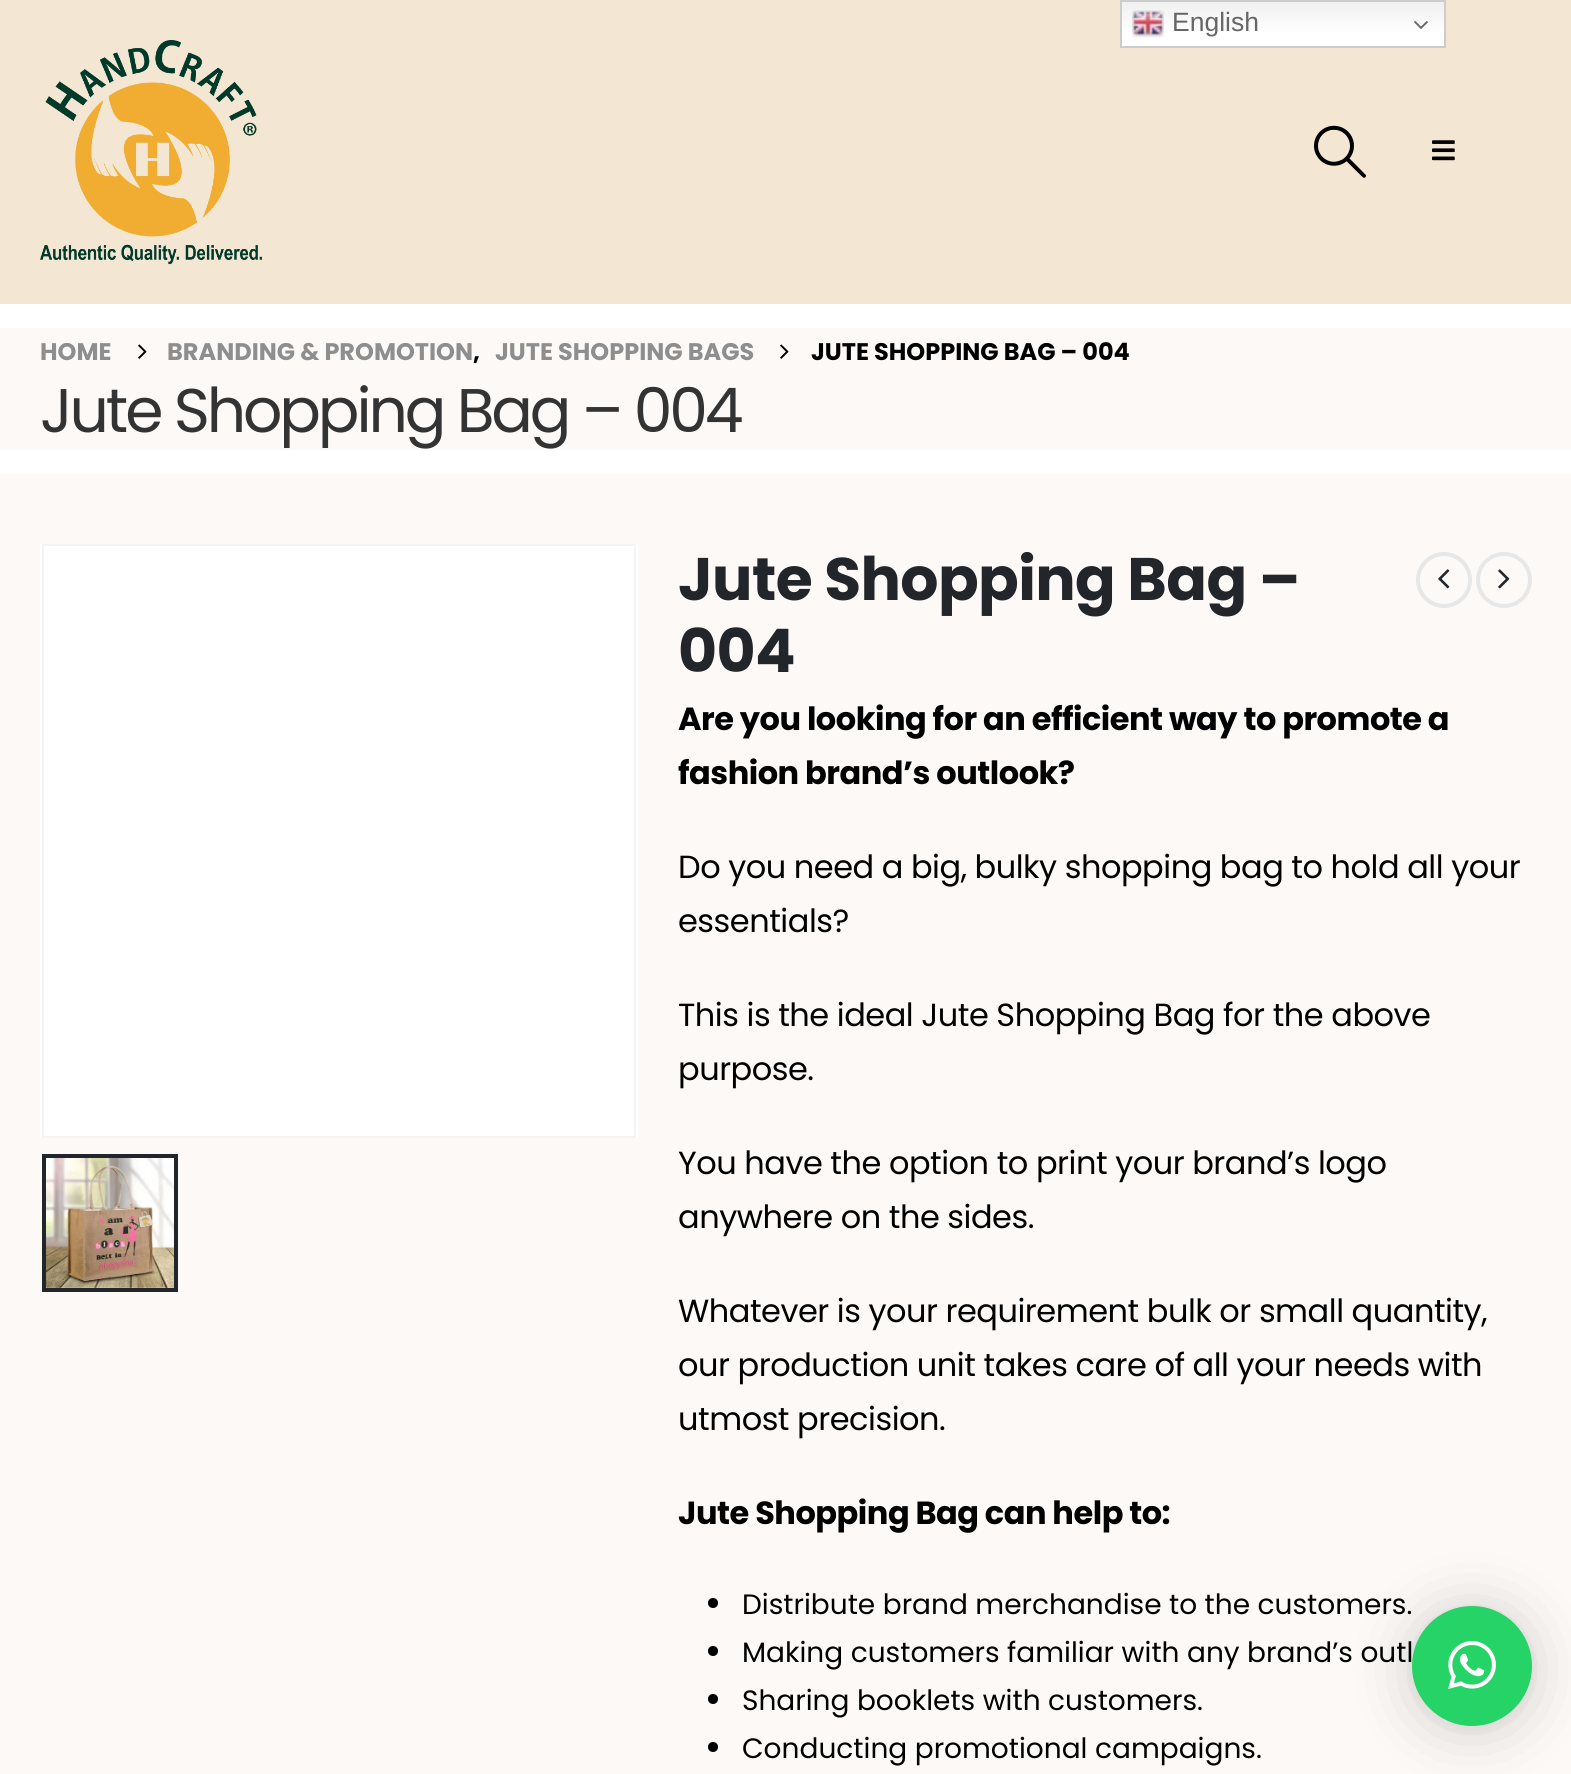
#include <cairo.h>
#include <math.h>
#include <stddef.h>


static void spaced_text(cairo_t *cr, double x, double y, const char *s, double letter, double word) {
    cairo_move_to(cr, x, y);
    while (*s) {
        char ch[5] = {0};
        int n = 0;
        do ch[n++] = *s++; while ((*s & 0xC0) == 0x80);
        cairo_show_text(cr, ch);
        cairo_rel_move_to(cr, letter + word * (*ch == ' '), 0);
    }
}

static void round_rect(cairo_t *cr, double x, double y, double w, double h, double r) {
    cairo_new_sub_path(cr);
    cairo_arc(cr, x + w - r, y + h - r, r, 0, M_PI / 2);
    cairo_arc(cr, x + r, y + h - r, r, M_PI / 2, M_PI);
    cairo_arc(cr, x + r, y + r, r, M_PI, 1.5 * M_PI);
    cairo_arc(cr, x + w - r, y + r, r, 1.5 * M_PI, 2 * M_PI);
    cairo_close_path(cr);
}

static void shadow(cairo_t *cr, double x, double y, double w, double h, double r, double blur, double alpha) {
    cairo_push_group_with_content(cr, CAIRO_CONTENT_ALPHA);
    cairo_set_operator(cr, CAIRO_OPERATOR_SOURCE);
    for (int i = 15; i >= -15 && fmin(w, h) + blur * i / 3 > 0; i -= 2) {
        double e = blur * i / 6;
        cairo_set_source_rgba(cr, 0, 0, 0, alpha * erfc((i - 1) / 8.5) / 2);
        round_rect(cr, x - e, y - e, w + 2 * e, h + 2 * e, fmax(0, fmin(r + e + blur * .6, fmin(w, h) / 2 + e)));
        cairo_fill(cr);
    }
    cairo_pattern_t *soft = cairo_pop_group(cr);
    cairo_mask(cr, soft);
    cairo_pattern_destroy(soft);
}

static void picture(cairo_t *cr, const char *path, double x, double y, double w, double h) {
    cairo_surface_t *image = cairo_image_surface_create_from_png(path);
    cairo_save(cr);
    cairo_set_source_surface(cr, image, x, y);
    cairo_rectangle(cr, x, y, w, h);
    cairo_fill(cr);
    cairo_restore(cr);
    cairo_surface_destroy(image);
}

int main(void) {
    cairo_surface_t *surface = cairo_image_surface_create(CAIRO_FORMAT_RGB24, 1571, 1774);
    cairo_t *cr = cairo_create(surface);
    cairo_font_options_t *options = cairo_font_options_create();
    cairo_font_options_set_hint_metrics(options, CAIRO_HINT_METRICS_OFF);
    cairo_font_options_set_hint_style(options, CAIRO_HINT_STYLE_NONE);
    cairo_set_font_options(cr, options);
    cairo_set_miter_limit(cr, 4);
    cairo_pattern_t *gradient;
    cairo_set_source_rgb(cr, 0.988, 0.976, 0.961);
    cairo_paint(cr);
    cairo_set_source_rgb(cr, 0.953, 0.902, 0.827);
    cairo_rectangle(cr, 0, 0, 1571, 304);
    cairo_fill(cr);
    gradient = cairo_pattern_create_linear(1283, 0, 1283, 48);
    cairo_pattern_add_color_stop_rgba(gradient, 0, 0.937, 0.937, 0.937, 1);
    cairo_pattern_add_color_stop_rgba(gradient, 0.7, 1, 1, 1, 1);
    cairo_set_source(cr, gradient);
    cairo_pattern_destroy(gradient);
    cairo_rectangle(cr, 1122, 2, 322, 44);
    cairo_fill(cr);
    cairo_rectangle(cr, 1121, 1, 324, 46);
    cairo_set_source_rgb(cr, 0.8, 0.8, 0.8);
    cairo_stroke(cr);
    picture(cr, "img1.png", 1132, 10, 32, 28);
    cairo_select_font_face(cr, "Liberation Sans", CAIRO_FONT_SLANT_NORMAL, CAIRO_FONT_WEIGHT_NORMAL);
    cairo_set_font_size(cr, 26.5);
    cairo_set_source_rgb(cr, 0.4, 0.4, 0.4);
    cairo_move_to(cr, 1172, 31);
    cairo_show_text(cr, "English");
    picture(cr, "img2.png", 1414, 21, 14, 8);
    picture(cr, "img3.png", 40, 40, 222, 225);
    picture(cr, "img4.png", 1314, 125, 52, 53);
    picture(cr, "img5.png", 1432, 140, 23, 21);
    cairo_set_source_rgb(cr, 1, 1, 1);
    cairo_rectangle(cr, 0, 304, 1571, 170);
    cairo_fill(cr);
    cairo_set_source_rgb(cr, 0.988, 0.976, 0.961);
    cairo_rectangle(cr, 0, 328, 1571, 122);
    cairo_fill(cr);
    cairo_select_font_face(cr, "Poppins", CAIRO_FONT_SLANT_NORMAL, CAIRO_FONT_WEIGHT_BOLD);
    cairo_set_font_size(cr, 24);
    cairo_set_source_rgb(cr, 0.557, 0.557, 0.557);
    cairo_move_to(cr, 40, 360);
    cairo_show_text(cr, "HOME");
    picture(cr, "img6.png", 138, 344, 9, 15);
    cairo_move_to(cr, 167, 360);
    cairo_show_text(cr, "BRANDING & PROMOTION");
    cairo_move_to(cr, 495, 360);
    cairo_show_text(cr, "JUTE SHOPPING BAGS");
    picture(cr, "img6.png", 780, 344, 9, 15);
    cairo_set_source_rgb(cr, 0, 0, 0);
    cairo_move_to(cr, 473, 360);
    cairo_show_text(cr, ",");
    cairo_move_to(cr, 811, 360);
    cairo_show_text(cr, "JUTE SHOPPING BAG – 004");
    cairo_select_font_face(cr, "Poppins", CAIRO_FONT_SLANT_NORMAL, CAIRO_FONT_WEIGHT_NORMAL);
    cairo_set_font_size(cr, 61.6);
    cairo_set_source_rgb(cr, 0.2, 0.2, 0.2);
    spaced_text(cr, 40, 432, "Jute Shopping Bag – 004", -3.1, 0);
    cairo_set_source_rgb(cr, 1, 1, 1);
    cairo_rectangle(cr, 40, 544, 598, 594);
    cairo_fill(cr);
    cairo_rectangle(cr, 43, 545, 592, 592);
    cairo_set_source_rgb(cr, 0.957, 0.957, 0.957);
    cairo_stroke(cr);
    cairo_rectangle(cr, 44, 1156, 132, 134);
    cairo_set_source_rgb(cr, 0.133, 0.145, 0.161);
    cairo_set_line_width(cr, 4);
    cairo_stroke(cr);
    picture(cr, "img7.png", 46, 1158, 128, 130);
    cairo_select_font_face(cr, "Poppins", CAIRO_FONT_SLANT_NORMAL, CAIRO_FONT_WEIGHT_BOLD);
    cairo_set_font_size(cr, 60);
    spaced_text(cr, 678, 600, "Jute Shopping Bag –", -0.6, 0);
    spaced_text(cr, 678, 672, "004", -0.6, 0);
    cairo_new_path(cr);
    cairo_arc(cr, 1444, 580, 26, 0, 2 * M_PI);
    cairo_set_source_rgb(cr, 0.906, 0.906, 0.906);
    cairo_stroke(cr);
    picture(cr, "img8.png", 1438, 569, 12, 20);
    cairo_arc(cr, 1504, 580, 26, 0, 2 * M_PI);
    cairo_stroke(cr);
    picture(cr, "img9.png", 1498, 569, 12, 20);
    cairo_set_font_size(cr, 32);
    cairo_set_source_rgb(cr, 0, 0, 0);
    spaced_text(cr, 678, 730, "Are you looking for an efficient way to promote a", -0.48, 0);
    spaced_text(cr, 678, 784, "fashion brand’s outlook?", -0.48, 0);
    cairo_select_font_face(cr, "Poppins", CAIRO_FONT_SLANT_NORMAL, CAIRO_FONT_WEIGHT_NORMAL);
    spaced_text(cr, 678, 878, "Do you need a big, bulky shopping bag to hold all your", -0.48, 0);
    spaced_text(cr, 678, 932, "essentials?", -0.48, 0);
    spaced_text(cr, 678, 1026, "This is the ideal Jute Shopping Bag for the above", -0.48, 0);
    spaced_text(cr, 678, 1080, "purpose.", -0.48, 0);
    spaced_text(cr, 678, 1174, "You have the option to print your brand’s logo", -0.48, 0);
    spaced_text(cr, 678, 1228, "anywhere on the sides.", -0.48, 0);
    spaced_text(cr, 678, 1322, "Whatever is your requirement bulk or small quantity,", -0.48, 0);
    spaced_text(cr, 678, 1376, "our production unit takes care of all your needs with", -0.48, 0);
    spaced_text(cr, 678, 1430, "utmost precision.", -0.48, 0);
    cairo_select_font_face(cr, "Poppins", CAIRO_FONT_SLANT_NORMAL, CAIRO_FONT_WEIGHT_BOLD);
    spaced_text(cr, 678, 1524, "Jute Shopping Bag can help to:", -0.48, 0);
    cairo_new_path(cr);
    cairo_arc(cr, 713, 1603, 5, 0, 2 * M_PI);
    cairo_fill(cr);
    cairo_select_font_face(cr, "Poppins", CAIRO_FONT_SLANT_NORMAL, CAIRO_FONT_WEIGHT_NORMAL);
    cairo_set_font_size(cr, 28);
    cairo_move_to(cr, 742, 1614);
    cairo_show_text(cr, "Distribute brand merchandise to the customers.");
    cairo_new_path(cr);
    cairo_arc(cr, 713, 1651, 5, 0, 2 * M_PI);
    cairo_fill(cr);
    cairo_move_to(cr, 742, 1662);
    cairo_show_text(cr, "Making customers familiar with any brand’s outl");
    cairo_new_path(cr);
    cairo_arc(cr, 713, 1699, 5, 0, 2 * M_PI);
    cairo_fill(cr);
    cairo_move_to(cr, 742, 1710);
    cairo_show_text(cr, "Sharing booklets with customers.");
    cairo_new_path(cr);
    cairo_arc(cr, 713, 1747, 5, 0, 2 * M_PI);
    cairo_fill(cr);
    cairo_move_to(cr, 742, 1758);
    cairo_show_text(cr, "Conducting promotional campaigns.");
    cairo_set_source_rgb(cr, 0, 0, 0);
    shadow(cr, 1412, 1610, 120, 120, 60, 32, 0.16);
    shadow(cr, 1412, 1608, 120, 120, 60, 6, 0.06);
    cairo_set_source_rgb(cr, 0.145, 0.827, 0.4);
    cairo_arc(cr, 1472, 1666, 60, 0, 2 * M_PI);
    cairo_fill(cr);
    picture(cr, "img10.png", 1448, 1641, 48, 48);
    cairo_surface_write_to_png(surface, "page.png");
    cairo_font_options_destroy(options);
    cairo_destroy(cr);
    cairo_surface_destroy(surface);
    return 0;
}
